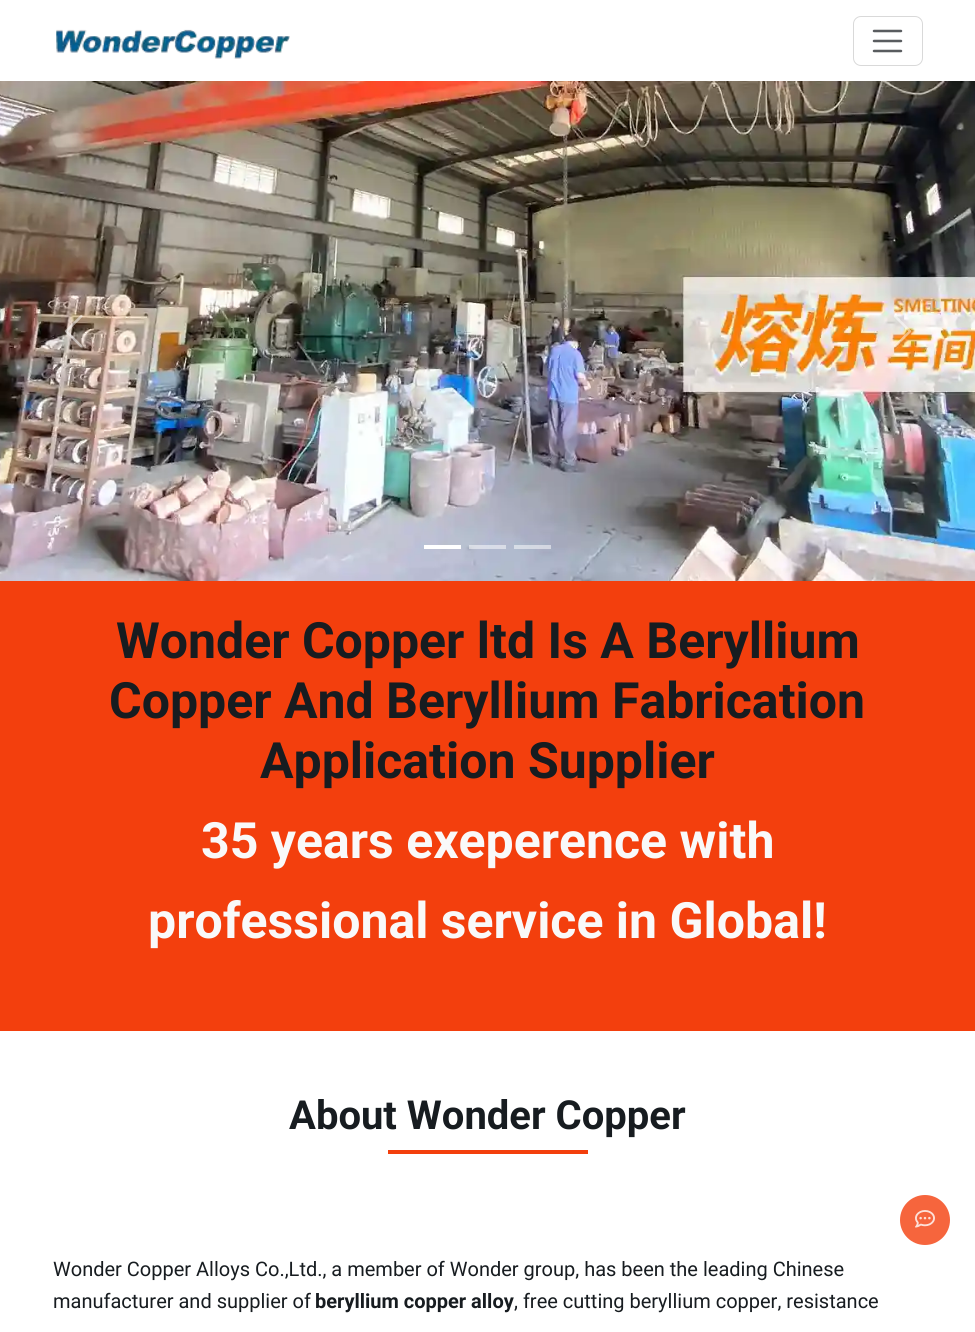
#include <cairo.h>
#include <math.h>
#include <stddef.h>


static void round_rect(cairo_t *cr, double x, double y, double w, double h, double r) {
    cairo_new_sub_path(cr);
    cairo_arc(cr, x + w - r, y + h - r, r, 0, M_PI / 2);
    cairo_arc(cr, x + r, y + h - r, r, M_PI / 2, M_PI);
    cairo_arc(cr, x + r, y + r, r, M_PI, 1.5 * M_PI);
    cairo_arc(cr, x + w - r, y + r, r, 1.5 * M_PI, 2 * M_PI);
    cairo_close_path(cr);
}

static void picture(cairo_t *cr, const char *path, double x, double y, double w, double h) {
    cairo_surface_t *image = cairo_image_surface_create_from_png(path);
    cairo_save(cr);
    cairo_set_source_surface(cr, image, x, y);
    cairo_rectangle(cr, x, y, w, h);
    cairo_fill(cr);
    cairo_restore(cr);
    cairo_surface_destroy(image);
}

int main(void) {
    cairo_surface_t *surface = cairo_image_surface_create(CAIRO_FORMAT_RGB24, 975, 1332);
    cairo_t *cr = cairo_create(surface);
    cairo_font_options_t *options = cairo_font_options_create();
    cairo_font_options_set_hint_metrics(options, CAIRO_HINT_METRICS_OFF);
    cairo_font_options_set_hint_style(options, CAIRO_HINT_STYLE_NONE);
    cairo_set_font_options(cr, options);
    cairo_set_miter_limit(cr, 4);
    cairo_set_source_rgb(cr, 1, 1, 1);
    cairo_paint(cr);
    picture(cr, "img1.png", 56, 29, 234, 30);
    round_rect(cr, 853.5, 16.5, 69, 49, 7.5);
    cairo_set_source_rgb(cr, 0.851, 0.851, 0.851);
    cairo_set_line_width(cr, 1);
    cairo_stroke(cr);
    cairo_new_path(cr);
    cairo_move_to(cr, 874, 31);
    cairo_line_to(cr, 901, 31);
    cairo_move_to(cr, 874, 41);
    cairo_line_to(cr, 901, 41);
    cairo_move_to(cr, 874, 51);
    cairo_line_to(cr, 901, 51);
    cairo_set_source_rgb(cr, 0.349, 0.361, 0.373);
    cairo_set_line_width(cr, 2.5);
    cairo_set_line_cap(cr, CAIRO_LINE_CAP_ROUND);
    cairo_stroke(cr);
    picture(cr, "img2.png", 0, 81, 975, 500);
    picture(cr, "img3.png", 65, 315, 18, 33);
    picture(cr, "img4.png", 894, 315, 18, 33);
    cairo_set_source_rgb(cr, 1, 1, 1);
    cairo_rectangle(cr, 424, 545, 37, 4);
    cairo_fill(cr);
    cairo_set_source_rgba(cr, 1, 1, 1, 0.5);
    cairo_rectangle(cr, 469, 545, 37, 4);
    cairo_fill(cr);
    cairo_rectangle(cr, 514, 545, 37, 4);
    cairo_fill(cr);
    cairo_set_source_rgb(cr, 0.953, 0.247, 0.051);
    cairo_rectangle(cr, 0, 581, 975, 450);
    cairo_fill(cr);
    cairo_select_font_face(cr, "Roboto", CAIRO_FONT_SLANT_NORMAL, CAIRO_FONT_WEIGHT_BOLD);
    cairo_set_font_size(cr, 50);
    cairo_set_source_rgb(cr, 0.09, 0.11, 0.125);
    cairo_move_to(cr, 116, 658);
    cairo_show_text(cr, "Wonder Copper ltd Is A Beryllium");
    cairo_move_to(cr, 109, 718);
    cairo_show_text(cr, "Copper And Beryllium Fabrication");
    cairo_move_to(cr, 260, 778);
    cairo_show_text(cr, "Application Supplier");
    cairo_set_source_rgb(cr, 0.976, 0.976, 0.976);
    cairo_move_to(cr, 201, 858);
    cairo_show_text(cr, "35 years exeperence with");
    cairo_move_to(cr, 148, 938);
    cairo_show_text(cr, "professional service in Global!");
    cairo_set_font_size(cr, 40);
    cairo_set_source_rgb(cr, 0.09, 0.11, 0.125);
    cairo_move_to(cr, 289, 1129);
    cairo_show_text(cr, "About Wonder Copper");
    cairo_set_source_rgb(cr, 0.953, 0.247, 0.051);
    cairo_rectangle(cr, 388, 1150, 200, 4);
    cairo_fill(cr);
    cairo_select_font_face(cr, "Roboto", CAIRO_FONT_SLANT_NORMAL, CAIRO_FONT_WEIGHT_NORMAL);
    cairo_set_font_size(cr, 20);
    cairo_set_source_rgb(cr, 0.09, 0.11, 0.125);
    cairo_move_to(cr, 53, 1276);
    cairo_show_text(cr, "Wonder Copper Alloys Co.,Ltd., a member of Wonder group, has been the leading Chinese");
    cairo_move_to(cr, 53, 1308);
    cairo_show_text(cr, "manufacturer and supplier of");
    cairo_select_font_face(cr, "Roboto", CAIRO_FONT_SLANT_NORMAL, CAIRO_FONT_WEIGHT_BOLD);
    cairo_move_to(cr, 315, 1308);
    cairo_show_text(cr, "beryllium copper alloy");
    cairo_select_font_face(cr, "Roboto", CAIRO_FONT_SLANT_NORMAL, CAIRO_FONT_WEIGHT_NORMAL);
    cairo_move_to(cr, 514, 1308);
    cairo_show_text(cr, ", free cutting beryllium copper, resistance");
    cairo_set_source_rgb(cr, 0.961, 0.396, 0.239);
    cairo_new_path(cr);
    cairo_arc(cr, 925, 1220, 25, 0, 2 * M_PI);
    cairo_fill(cr);
    picture(cr, "img5.png", 915, 1210, 20, 18);
    cairo_surface_write_to_png(surface, "page.png");
    cairo_font_options_destroy(options);
    cairo_destroy(cr);
    cairo_surface_destroy(surface);
    return 0;
}
